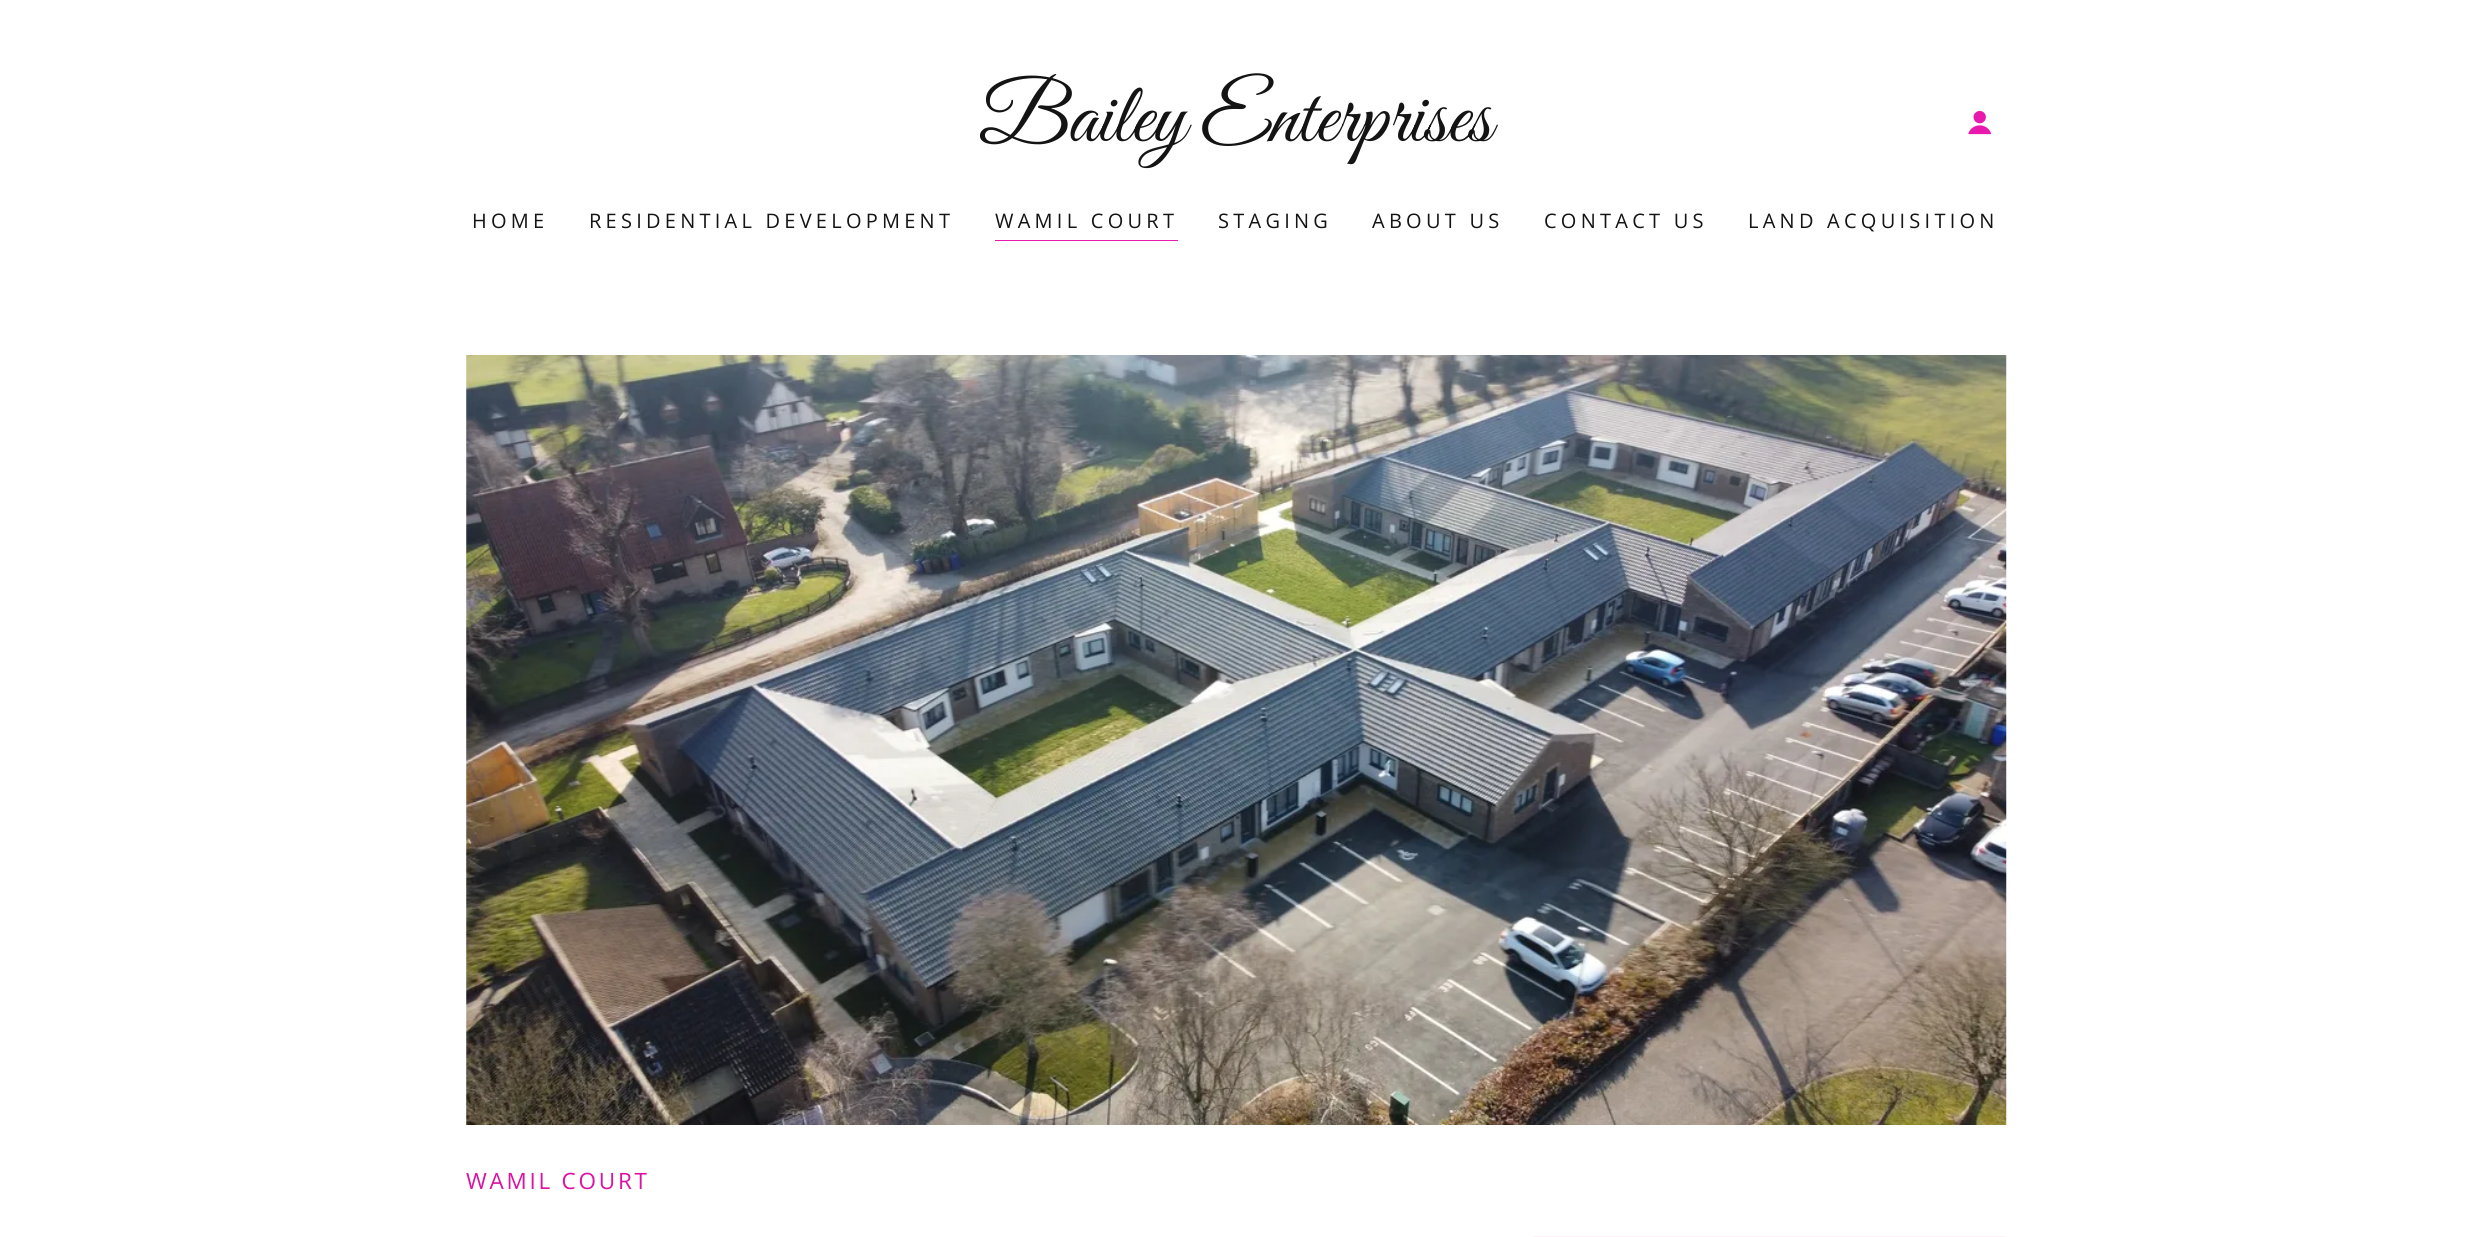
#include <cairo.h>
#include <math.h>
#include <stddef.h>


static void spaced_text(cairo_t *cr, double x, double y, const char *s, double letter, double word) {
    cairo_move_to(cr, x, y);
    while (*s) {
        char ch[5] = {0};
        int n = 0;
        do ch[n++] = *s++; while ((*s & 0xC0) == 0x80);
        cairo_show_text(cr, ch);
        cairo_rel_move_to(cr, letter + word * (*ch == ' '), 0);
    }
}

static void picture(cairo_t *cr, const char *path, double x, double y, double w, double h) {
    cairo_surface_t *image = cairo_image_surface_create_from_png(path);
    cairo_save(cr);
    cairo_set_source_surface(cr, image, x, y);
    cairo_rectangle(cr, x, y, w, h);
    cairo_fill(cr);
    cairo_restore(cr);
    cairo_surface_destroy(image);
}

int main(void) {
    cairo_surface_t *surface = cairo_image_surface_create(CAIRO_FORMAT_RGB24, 2471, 1237);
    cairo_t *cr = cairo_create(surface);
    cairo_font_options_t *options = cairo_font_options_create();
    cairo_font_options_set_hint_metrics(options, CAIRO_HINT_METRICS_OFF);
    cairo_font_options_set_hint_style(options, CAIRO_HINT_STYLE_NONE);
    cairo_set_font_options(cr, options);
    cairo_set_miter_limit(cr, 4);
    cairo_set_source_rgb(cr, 1, 1, 1);
    cairo_paint(cr);
    cairo_select_font_face(cr, "Great Vibes", CAIRO_FONT_SLANT_NORMAL, CAIRO_FONT_WEIGHT_NORMAL);
    cairo_set_font_size(cr, 85);
    cairo_set_source_rgb(cr, 0.082, 0.082, 0.082);
    cairo_move_to(cr, 979, 141);
    cairo_show_text(cr, "Bailey Enterprises");
    picture(cr, "img1.png", 1968, 110, 24, 25);
    cairo_select_font_face(cr, "Open Sans", CAIRO_FONT_SLANT_NORMAL, CAIRO_FONT_WEIGHT_NORMAL);
    cairo_set_font_size(cr, 20);
    spaced_text(cr, 472, 228, "HOME", 4.25, 0);
    spaced_text(cr, 589, 228, "RESIDENTIAL DEVELOPMENT", 4.25, 0);
    cairo_set_source_rgb(cr, 0.91, 0.102, 0.682);
    cairo_rectangle(cr, 995, 240, 183, 1);
    cairo_fill(cr);
    cairo_set_source_rgb(cr, 0.082, 0.082, 0.082);
    spaced_text(cr, 995, 228, "WAMIL COURT", 4.25, 0);
    spaced_text(cr, 1218, 228, "STAGING", 4.25, 0);
    spaced_text(cr, 1372, 228, "ABOUT US", 4.25, 0);
    spaced_text(cr, 1544, 228, "CONTACT US", 4.25, 0);
    spaced_text(cr, 1748, 228, "LAND ACQUISITION", 4.25, 0);
    picture(cr, "img2.png", 466, 355, 1541, 770);
    cairo_set_font_size(cr, 22.5);
    cairo_set_source_rgb(cr, 0.859, 0.071, 0.635);
    spaced_text(cr, 466, 1189, "WAMIL COURT", 2.75, 0);
    cairo_set_source_rgb(cr, 1, 0.941, 0.969);
    cairo_rectangle(cr, 1533, 1236, 472, 1);
    cairo_fill(cr);
    cairo_surface_write_to_png(surface, "page.png");
    cairo_font_options_destroy(options);
    cairo_destroy(cr);
    cairo_surface_destroy(surface);
    return 0;
}
